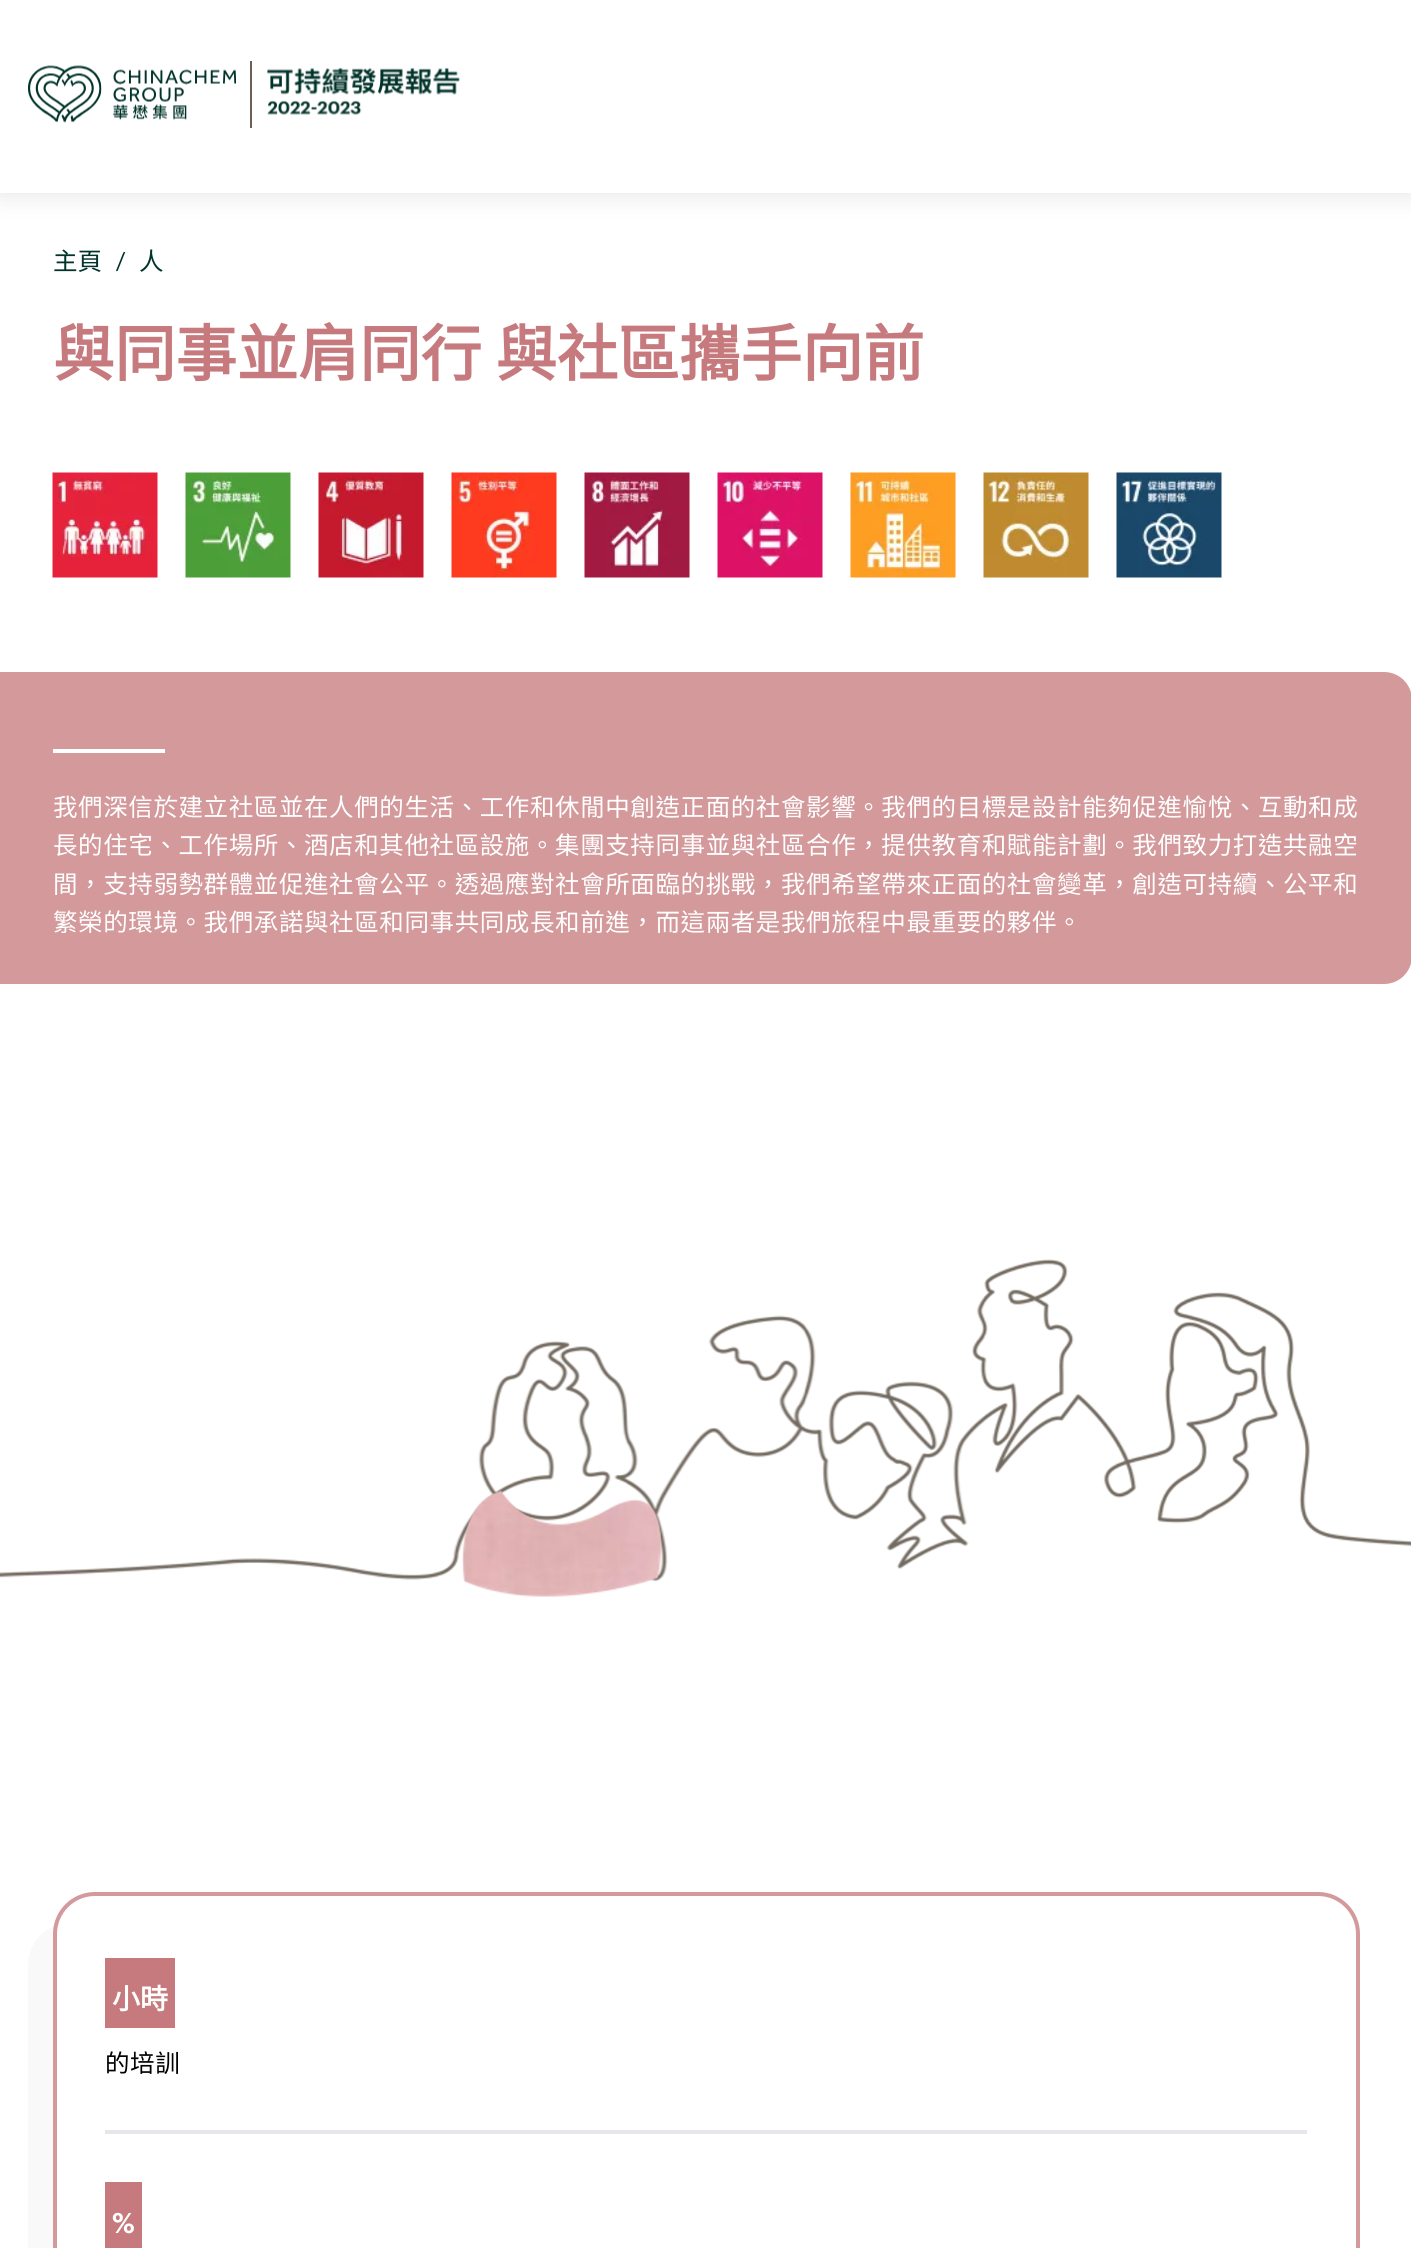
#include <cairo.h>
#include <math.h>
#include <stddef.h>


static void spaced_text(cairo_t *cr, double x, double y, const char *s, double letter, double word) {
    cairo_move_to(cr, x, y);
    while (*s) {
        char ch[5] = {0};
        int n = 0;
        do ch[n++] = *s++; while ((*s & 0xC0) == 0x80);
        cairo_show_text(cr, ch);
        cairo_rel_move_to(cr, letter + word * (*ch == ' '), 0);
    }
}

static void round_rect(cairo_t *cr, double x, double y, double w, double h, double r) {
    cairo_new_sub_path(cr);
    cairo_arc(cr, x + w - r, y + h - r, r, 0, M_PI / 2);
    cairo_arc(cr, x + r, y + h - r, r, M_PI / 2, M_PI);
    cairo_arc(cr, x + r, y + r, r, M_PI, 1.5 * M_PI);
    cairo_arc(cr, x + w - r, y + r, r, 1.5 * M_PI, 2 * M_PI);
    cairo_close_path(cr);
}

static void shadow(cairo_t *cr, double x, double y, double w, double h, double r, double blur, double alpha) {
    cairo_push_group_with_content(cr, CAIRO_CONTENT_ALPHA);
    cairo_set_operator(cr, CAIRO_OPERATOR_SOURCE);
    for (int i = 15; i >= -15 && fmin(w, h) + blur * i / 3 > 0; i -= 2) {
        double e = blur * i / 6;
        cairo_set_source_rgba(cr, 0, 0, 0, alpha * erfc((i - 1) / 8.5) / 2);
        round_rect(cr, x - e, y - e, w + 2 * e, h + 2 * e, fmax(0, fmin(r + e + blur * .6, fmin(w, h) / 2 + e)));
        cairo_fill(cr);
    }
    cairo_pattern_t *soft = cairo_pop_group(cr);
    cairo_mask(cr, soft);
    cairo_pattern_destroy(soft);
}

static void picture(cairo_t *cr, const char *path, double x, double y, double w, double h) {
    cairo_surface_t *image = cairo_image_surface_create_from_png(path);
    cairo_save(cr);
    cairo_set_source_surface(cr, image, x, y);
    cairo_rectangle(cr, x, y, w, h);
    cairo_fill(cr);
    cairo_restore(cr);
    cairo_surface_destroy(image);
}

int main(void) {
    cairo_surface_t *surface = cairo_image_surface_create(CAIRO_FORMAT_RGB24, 1411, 2248);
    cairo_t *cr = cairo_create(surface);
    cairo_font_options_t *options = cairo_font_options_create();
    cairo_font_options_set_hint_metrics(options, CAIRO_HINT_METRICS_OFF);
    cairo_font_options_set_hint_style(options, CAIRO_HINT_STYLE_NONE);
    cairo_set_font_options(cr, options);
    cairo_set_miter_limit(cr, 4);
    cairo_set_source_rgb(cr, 1, 1, 1);
    cairo_paint(cr);
    cairo_set_source_rgb(cr, 0, 0, 0);
    shadow(cr, 0, 4, 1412, 192, 0, 12, 0.1);
    cairo_set_source_rgb(cr, 1, 1, 1);
    cairo_rectangle(cr, 0, 0, 1411, 193);
    cairo_fill(cr);
    cairo_set_source_rgb(cr, 0.42, 0.376, 0.345);
    cairo_rectangle(cr, 250, 61, 2, 67);
    cairo_fill(cr);
    picture(cr, "img1.png", 28, 65, 208, 58);
    picture(cr, "img2.png", 267, 67, 193, 48);
    cairo_select_font_face(cr, "Noto Sans CJK HK", CAIRO_FONT_SLANT_NORMAL, CAIRO_FONT_WEIGHT_NORMAL);
    cairo_set_font_size(cr, 24.5);
    cairo_set_source_rgb(cr, 0, 0.2, 0.161);
    cairo_move_to(cr, 53, 270);
    cairo_show_text(cr, "主頁");
    cairo_select_font_face(cr, "Lato", CAIRO_FONT_SLANT_NORMAL, CAIRO_FONT_WEIGHT_NORMAL);
    cairo_move_to(cr, 116, 270);
    cairo_show_text(cr, "/");
    cairo_select_font_face(cr, "Noto Sans CJK HK", CAIRO_FONT_SLANT_NORMAL, CAIRO_FONT_WEIGHT_NORMAL);
    cairo_move_to(cr, 139, 270);
    cairo_show_text(cr, "人");
    cairo_select_font_face(cr, "Noto Sans CJK HK", CAIRO_FONT_SLANT_NORMAL, CAIRO_FONT_WEIGHT_BOLD);
    cairo_set_font_size(cr, 61.25);
    cairo_set_source_rgb(cr, 0.776, 0.478, 0.49);
    cairo_move_to(cr, 53, 376);
    cairo_show_text(cr, "與同事並肩同行 與社區攜手向前");
    picture(cr, "img3.png", 52, 472, 106, 106);
    picture(cr, "img4.png", 185, 472, 106, 106);
    picture(cr, "img5.png", 318, 472, 106, 106);
    picture(cr, "img6.png", 451, 472, 106, 106);
    picture(cr, "img7.png", 584, 472, 106, 106);
    picture(cr, "img8.png", 717, 472, 106, 106);
    picture(cr, "img9.png", 850, 472, 106, 106);
    picture(cr, "img10.png", 983, 472, 106, 106);
    picture(cr, "img11.png", 1116, 472, 106, 106);
    cairo_set_source_rgb(cr, 0.827, 0.6, 0.608);
    cairo_new_path(cr);
    cairo_move_to(cr, 0, 672);
    cairo_line_to(cr, 1384, 672);
    cairo_curve_to(cr, 1399.5, 672, 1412, 684.5, 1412, 700);
    cairo_line_to(cr, 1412, 956);
    cairo_curve_to(cr, 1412, 971.5, 1399.5, 984, 1384, 984);
    cairo_line_to(cr, 0, 984);
    cairo_close_path(cr);
    cairo_fill(cr);
    cairo_set_source_rgb(cr, 1, 1, 1);
    cairo_rectangle(cr, 53, 749, 112, 4);
    cairo_fill(cr);
    cairo_select_font_face(cr, "Noto Sans CJK HK", CAIRO_FONT_SLANT_NORMAL, CAIRO_FONT_WEIGHT_NORMAL);
    cairo_set_font_size(cr, 24.5);
    spaced_text(cr, 53, 816, "我們深信於建立社區並在人們的生活、工作和休閒中創造正面的社會影響。我們的目標是設計能夠促進愉悅、互動和成", 0.6, 0);
    spaced_text(cr, 53, 854, "長的住宅、工作場所、酒店和其他社區設施。集團支持同事並與社區合作，提供教育和賦能計劃。我們致力打造共融空", 0.6, 0);
    spaced_text(cr, 53, 893, "間，支持弱勢群體並促進社會公平。透過應對社會所面臨的挑戰，我們希望帶來正面的社會變革，創造可持續、公平和", 0.6, 0);
    spaced_text(cr, 53, 931, "繁榮的環境。我們承諾與社區和同事共同成長和前進，而這兩者是我們旅程中最重要的夥伴。", 0.6, 0);
    picture(cr, "img12.png", 0, 1259, 1411, 323);
    picture(cr, "img13.png", 462, 1490, 200, 107);
    cairo_set_source_rgb(cr, 0.973, 0.976, 0.976);
    round_rect(cr, 28, 1923, 1300, 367, 42);
    cairo_fill(cr);
    cairo_set_source_rgb(cr, 1, 1, 1);
    round_rect(cr, 55, 1894, 1303, 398, 40);
    cairo_fill_preserve(cr);
    cairo_set_source_rgb(cr, 0.827, 0.6, 0.608);
    cairo_set_line_width(cr, 4);
    cairo_stroke(cr);
    cairo_set_source_rgb(cr, 0.776, 0.478, 0.49);
    cairo_rectangle(cr, 105, 1958, 70, 70);
    cairo_fill(cr);
    cairo_select_font_face(cr, "Noto Sans CJK HK", CAIRO_FONT_SLANT_NORMAL, CAIRO_FONT_WEIGHT_BOLD);
    cairo_set_font_size(cr, 28);
    cairo_set_source_rgb(cr, 1, 1, 1);
    cairo_move_to(cr, 112, 2009);
    cairo_show_text(cr, "小時");
    cairo_select_font_face(cr, "Noto Sans CJK HK", CAIRO_FONT_SLANT_NORMAL, CAIRO_FONT_WEIGHT_NORMAL);
    cairo_set_font_size(cr, 24.5);
    cairo_set_source_rgb(cr, 0, 0, 0);
    spaced_text(cr, 105, 2072, "的培訓", 0.6, 0);
    cairo_set_source_rgb(cr, 0.898, 0.906, 0.922);
    cairo_rectangle(cr, 105, 2130, 1202, 4);
    cairo_fill(cr);
    cairo_set_source_rgb(cr, 0.776, 0.478, 0.49);
    cairo_rectangle(cr, 105, 2182, 37, 66);
    cairo_fill(cr);
    cairo_select_font_face(cr, "Graphik SemiBold", CAIRO_FONT_SLANT_NORMAL, CAIRO_FONT_WEIGHT_NORMAL);
    cairo_set_font_size(cr, 28);
    cairo_set_source_rgb(cr, 1, 1, 1);
    cairo_move_to(cr, 112, 2233);
    cairo_show_text(cr, "%");
    cairo_surface_write_to_png(surface, "page.png");
    cairo_font_options_destroy(options);
    cairo_destroy(cr);
    cairo_surface_destroy(surface);
    return 0;
}
